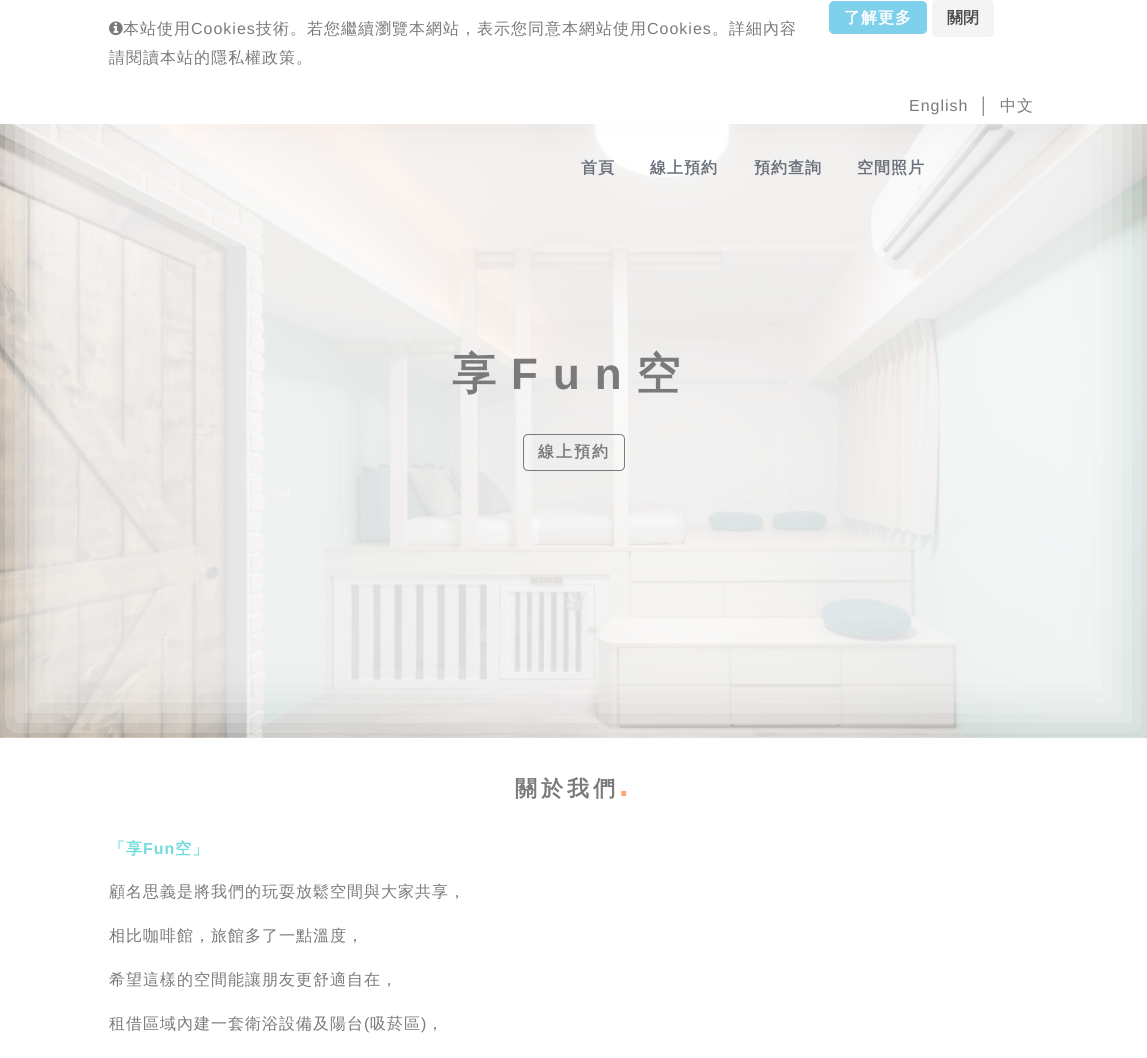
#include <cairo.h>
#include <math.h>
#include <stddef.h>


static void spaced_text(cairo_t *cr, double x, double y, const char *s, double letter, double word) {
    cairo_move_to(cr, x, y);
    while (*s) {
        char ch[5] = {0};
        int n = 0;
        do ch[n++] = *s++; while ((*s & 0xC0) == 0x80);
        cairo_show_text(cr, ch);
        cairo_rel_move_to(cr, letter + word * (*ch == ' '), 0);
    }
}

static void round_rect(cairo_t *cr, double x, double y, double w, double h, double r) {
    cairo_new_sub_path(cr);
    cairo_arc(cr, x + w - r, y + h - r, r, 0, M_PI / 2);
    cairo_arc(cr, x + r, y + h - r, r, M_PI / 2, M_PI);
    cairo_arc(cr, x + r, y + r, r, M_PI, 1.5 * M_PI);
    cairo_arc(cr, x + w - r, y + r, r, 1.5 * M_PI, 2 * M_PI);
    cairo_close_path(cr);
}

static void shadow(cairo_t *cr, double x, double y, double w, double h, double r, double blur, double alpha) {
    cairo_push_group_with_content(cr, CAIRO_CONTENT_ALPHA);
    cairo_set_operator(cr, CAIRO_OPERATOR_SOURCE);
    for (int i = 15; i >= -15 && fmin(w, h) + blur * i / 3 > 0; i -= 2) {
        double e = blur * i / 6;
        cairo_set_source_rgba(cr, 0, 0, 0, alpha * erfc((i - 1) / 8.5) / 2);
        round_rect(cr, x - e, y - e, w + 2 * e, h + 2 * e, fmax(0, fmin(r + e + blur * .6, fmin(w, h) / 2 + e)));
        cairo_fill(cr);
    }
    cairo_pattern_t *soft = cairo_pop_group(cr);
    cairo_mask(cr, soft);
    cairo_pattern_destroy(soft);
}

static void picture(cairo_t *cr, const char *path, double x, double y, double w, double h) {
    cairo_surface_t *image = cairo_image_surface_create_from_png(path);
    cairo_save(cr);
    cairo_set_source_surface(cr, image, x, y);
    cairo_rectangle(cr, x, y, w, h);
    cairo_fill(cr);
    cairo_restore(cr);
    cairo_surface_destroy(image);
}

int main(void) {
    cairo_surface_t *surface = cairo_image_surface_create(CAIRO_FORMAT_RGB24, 1147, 1058);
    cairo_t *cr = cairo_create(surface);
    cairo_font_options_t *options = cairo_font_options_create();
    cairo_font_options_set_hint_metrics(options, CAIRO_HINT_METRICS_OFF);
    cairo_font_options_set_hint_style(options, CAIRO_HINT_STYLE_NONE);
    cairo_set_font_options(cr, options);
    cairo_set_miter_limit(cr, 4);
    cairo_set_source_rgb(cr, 1, 1, 1);
    cairo_paint(cr);
    cairo_set_source_rgb(cr, 0.498, 0.816, 0.918);
    round_rect(cr, 829.5, 1.5, 97, 32, 4.5);
    cairo_fill_preserve(cr);
    cairo_set_line_width(cr, 1);
    cairo_stroke(cr);
    cairo_select_font_face(cr, "WenQuanYi Zen Hei", CAIRO_FONT_SLANT_NORMAL, CAIRO_FONT_WEIGHT_BOLD);
    cairo_set_font_size(cr, 16);
    cairo_set_source_rgb(cr, 1, 1, 1);
    spaced_text(cr, 844, 23, "了解更多", 1, 0);
    cairo_set_source_rgb(cr, 0.957, 0.957, 0.957);
    round_rect(cr, 932, 0, 62, 37, 5);
    cairo_fill(cr);
    cairo_set_source_rgb(cr, 0.31, 0.31, 0.31);
    cairo_move_to(cr, 947, 23);
    cairo_show_text(cr, "關閉");
    picture(cr, "img1.png", 109, 21, 14, 15);
    cairo_select_font_face(cr, "WenQuanYi Zen Hei Medium", CAIRO_FONT_SLANT_NORMAL, CAIRO_FONT_WEIGHT_NORMAL);
    cairo_set_source_rgb(cr, 0.478, 0.478, 0.478);
    spaced_text(cr, 123, 34, "本站使用", 1, 0);
    cairo_select_font_face(cr, "Liberation Sans", CAIRO_FONT_SLANT_NORMAL, CAIRO_FONT_WEIGHT_NORMAL);
    spaced_text(cr, 191, 34, "Cookies", 1, 0);
    cairo_select_font_face(cr, "WenQuanYi Zen Hei Medium", CAIRO_FONT_SLANT_NORMAL, CAIRO_FONT_WEIGHT_NORMAL);
    spaced_text(cr, 256, 34, "技術。若您繼續瀏覽本網站，表示您同意本網站使用", 1, 0);
    cairo_select_font_face(cr, "Liberation Sans", CAIRO_FONT_SLANT_NORMAL, CAIRO_FONT_WEIGHT_NORMAL);
    spaced_text(cr, 647, 34, "Cookies", 1, 0);
    cairo_select_font_face(cr, "WenQuanYi Zen Hei Medium", CAIRO_FONT_SLANT_NORMAL, CAIRO_FONT_WEIGHT_NORMAL);
    spaced_text(cr, 712, 34, "。詳細內容", 1, 0);
    spaced_text(cr, 109, 63, "請閱讀本站的隱私權政策。", 1, 0);
    picture(cr, "img2.png", 0, 124, 1147, 614);
    cairo_save(cr);
    cairo_rectangle(cr, 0, 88, 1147, 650);
    cairo_clip(cr);
    cairo_set_source_rgb(cr, 1, 1, 1);
    shadow(cr, 0, 88, 1147, 650, 0, 30, 0.8);
    cairo_restore(cr);
    cairo_select_font_face(cr, "Liberation Sans", CAIRO_FONT_SLANT_NORMAL, CAIRO_FONT_WEIGHT_NORMAL);
    spaced_text(cr, 909, 111, "English", 1, 0);
    spaced_text(cr, 979, 111, "│", 1, 0);
    cairo_select_font_face(cr, "WenQuanYi Zen Hei Medium", CAIRO_FONT_SLANT_NORMAL, CAIRO_FONT_WEIGHT_NORMAL);
    spaced_text(cr, 1000, 111, "中文", 1, 0);
    cairo_select_font_face(cr, "WenQuanYi Zen Hei", CAIRO_FONT_SLANT_NORMAL, CAIRO_FONT_WEIGHT_BOLD);
    cairo_set_source_rgb(cr, 0.416, 0.443, 0.478);
    spaced_text(cr, 581, 173, "首頁", 1, 0);
    spaced_text(cr, 650, 173, "線上預約", 1, 0);
    spaced_text(cr, 754, 173, "預約查詢", 1, 0);
    spaced_text(cr, 857, 173, "空間照片", 1, 0);
    cairo_set_font_size(cr, 44);
    cairo_set_source_rgb(cr, 0.478, 0.478, 0.478);
    spaced_text(cr, 452, 389, "享", 15, 0);
    cairo_select_font_face(cr, "Liberation Sans", CAIRO_FONT_SLANT_NORMAL, CAIRO_FONT_WEIGHT_BOLD);
    spaced_text(cr, 511, 389, "Fun", 15, 0);
    cairo_select_font_face(cr, "WenQuanYi Zen Hei", CAIRO_FONT_SLANT_NORMAL, CAIRO_FONT_WEIGHT_BOLD);
    spaced_text(cr, 636, 389, "空", 15, 0);
    round_rect(cr, 523.5, 434.5, 101, 36, 4.5);
    cairo_stroke(cr);
    cairo_set_font_size(cr, 16);
    spaced_text(cr, 538, 457, "線上預約", 2, 0);
    cairo_set_font_size(cr, 22);
    spaced_text(cr, 515, 796, "關於我們", 4, 0);
    cairo_select_font_face(cr, "Liberation Sans", CAIRO_FONT_SLANT_NORMAL, CAIRO_FONT_WEIGHT_BOLD);
    cairo_set_font_size(cr, 34);
    cairo_set_source_rgb(cr, 0.996, 0.655, 0.431);
    spaced_text(cr, 619, 796, ".", 4, 0);
    cairo_select_font_face(cr, "WenQuanYi Zen Hei", CAIRO_FONT_SLANT_NORMAL, CAIRO_FONT_WEIGHT_BOLD);
    cairo_set_font_size(cr, 16);
    cairo_set_source_rgb(cr, 0.447, 0.863, 0.863);
    spaced_text(cr, 109, 854, "「享", 1, 0);
    cairo_select_font_face(cr, "Liberation Sans", CAIRO_FONT_SLANT_NORMAL, CAIRO_FONT_WEIGHT_BOLD);
    spaced_text(cr, 143, 854, "Fun", 1, 0);
    cairo_select_font_face(cr, "WenQuanYi Zen Hei", CAIRO_FONT_SLANT_NORMAL, CAIRO_FONT_WEIGHT_BOLD);
    spaced_text(cr, 175, 854, "空」", 1, 0);
    cairo_select_font_face(cr, "WenQuanYi Zen Hei Medium", CAIRO_FONT_SLANT_NORMAL, CAIRO_FONT_WEIGHT_NORMAL);
    cairo_set_source_rgb(cr, 0.478, 0.478, 0.478);
    spaced_text(cr, 109, 897, "顧名思義是將我們的玩耍放鬆空間與大家共享，", 1, 0);
    spaced_text(cr, 109, 941, "相比咖啡館，旅館多了一點溫度，", 1, 0);
    spaced_text(cr, 109, 985, "希望這樣的空間能讓朋友更舒適自在，", 1, 0);
    spaced_text(cr, 109, 1029, "租借區域內建一套衛浴設備及陽台", 1, 0);
    cairo_select_font_face(cr, "Liberation Sans", CAIRO_FONT_SLANT_NORMAL, CAIRO_FONT_WEIGHT_NORMAL);
    spaced_text(cr, 364, 1029, "(", 1, 0);
    cairo_select_font_face(cr, "WenQuanYi Zen Hei Medium", CAIRO_FONT_SLANT_NORMAL, CAIRO_FONT_WEIGHT_NORMAL);
    spaced_text(cr, 370, 1029, "吸菸區", 1, 0);
    cairo_select_font_face(cr, "Liberation Sans", CAIRO_FONT_SLANT_NORMAL, CAIRO_FONT_WEIGHT_NORMAL);
    spaced_text(cr, 421, 1029, ")", 1, 0);
    cairo_select_font_face(cr, "WenQuanYi Zen Hei Medium", CAIRO_FONT_SLANT_NORMAL, CAIRO_FONT_WEIGHT_NORMAL);
    spaced_text(cr, 427, 1029, "，", 1, 0);
    cairo_surface_write_to_png(surface, "page.png");
    cairo_font_options_destroy(options);
    cairo_destroy(cr);
    cairo_surface_destroy(surface);
    return 0;
}
